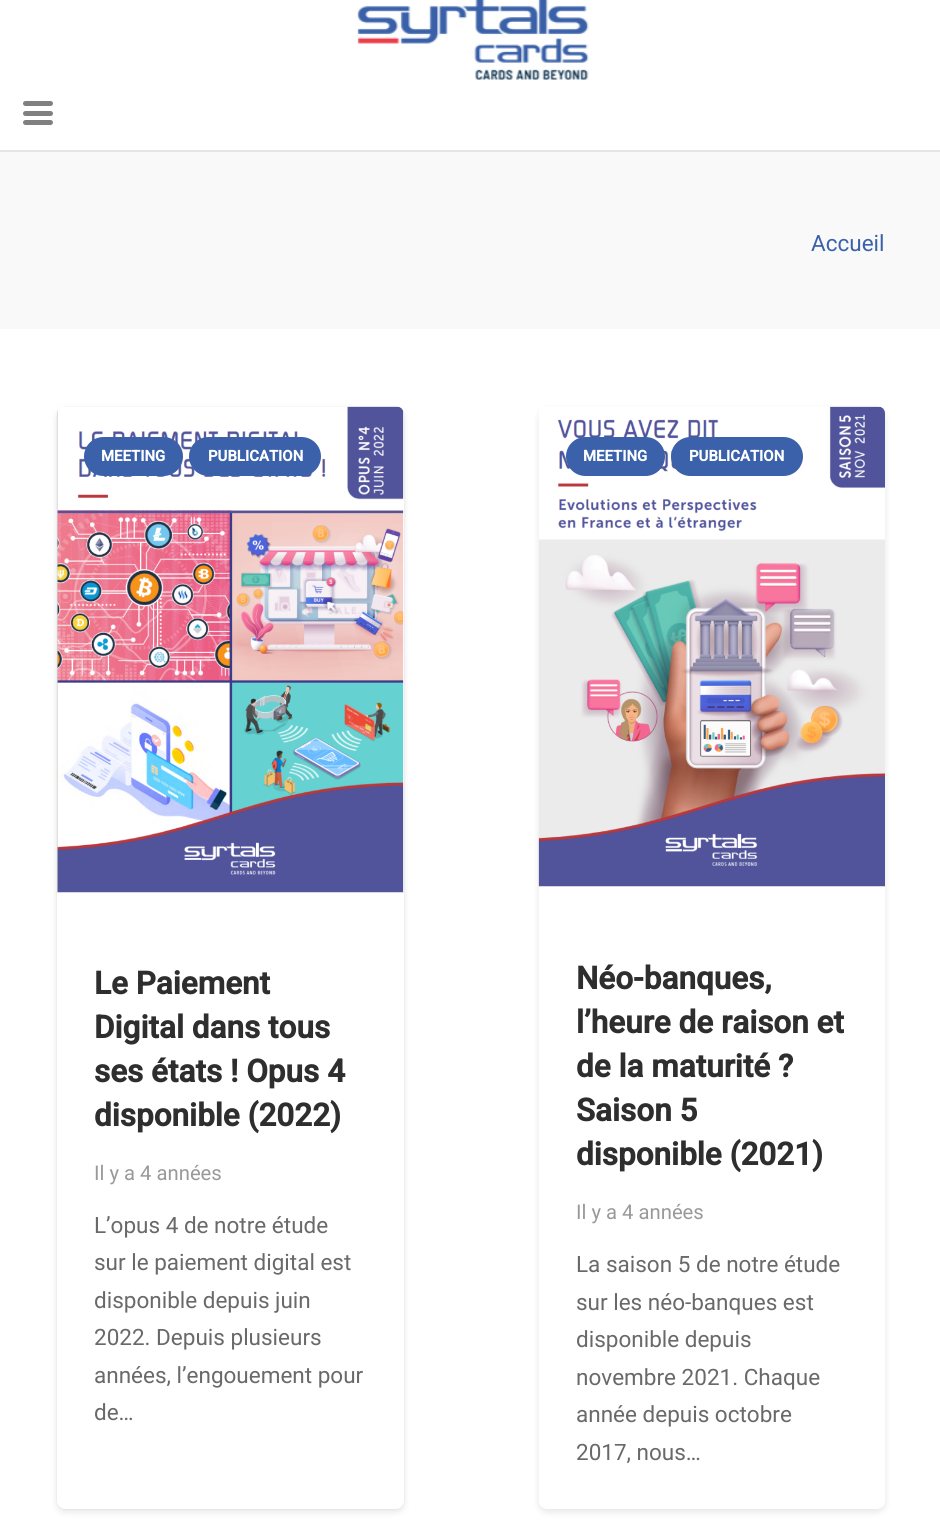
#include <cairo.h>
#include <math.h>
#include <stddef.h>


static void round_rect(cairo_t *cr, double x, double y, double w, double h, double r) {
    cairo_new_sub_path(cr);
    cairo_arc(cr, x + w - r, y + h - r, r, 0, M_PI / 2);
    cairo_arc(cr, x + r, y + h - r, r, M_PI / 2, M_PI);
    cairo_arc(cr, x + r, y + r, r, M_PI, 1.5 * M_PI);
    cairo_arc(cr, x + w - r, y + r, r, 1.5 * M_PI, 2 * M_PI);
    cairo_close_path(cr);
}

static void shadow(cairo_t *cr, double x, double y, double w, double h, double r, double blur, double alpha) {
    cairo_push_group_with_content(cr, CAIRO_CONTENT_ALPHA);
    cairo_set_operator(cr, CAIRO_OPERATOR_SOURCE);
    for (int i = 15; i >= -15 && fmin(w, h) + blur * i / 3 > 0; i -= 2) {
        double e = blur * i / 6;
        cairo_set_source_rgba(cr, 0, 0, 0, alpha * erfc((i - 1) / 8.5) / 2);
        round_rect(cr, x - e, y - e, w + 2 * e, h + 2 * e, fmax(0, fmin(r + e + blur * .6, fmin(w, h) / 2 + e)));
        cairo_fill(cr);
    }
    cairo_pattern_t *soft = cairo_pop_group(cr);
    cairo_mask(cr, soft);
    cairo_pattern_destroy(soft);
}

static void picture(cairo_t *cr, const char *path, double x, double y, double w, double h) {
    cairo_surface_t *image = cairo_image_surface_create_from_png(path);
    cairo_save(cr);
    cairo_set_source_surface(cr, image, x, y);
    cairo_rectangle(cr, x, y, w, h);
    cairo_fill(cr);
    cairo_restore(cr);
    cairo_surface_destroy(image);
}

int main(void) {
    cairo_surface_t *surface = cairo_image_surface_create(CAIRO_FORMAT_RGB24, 940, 1524);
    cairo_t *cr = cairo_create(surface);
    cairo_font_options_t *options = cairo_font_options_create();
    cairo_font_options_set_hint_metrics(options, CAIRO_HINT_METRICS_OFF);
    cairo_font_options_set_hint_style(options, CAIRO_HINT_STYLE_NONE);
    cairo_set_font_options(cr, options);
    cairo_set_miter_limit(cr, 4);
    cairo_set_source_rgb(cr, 1, 1, 1);
    cairo_paint(cr);
    picture(cr, "img1.png", 357, 0, 232, 80);
    cairo_set_source_rgb(cr, 0.898, 0.898, 0.898);
    cairo_new_path(cr);
    cairo_move_to(cr, 0, 150);
    cairo_line_to(cr, 0, 152);
    cairo_line_to(cr, 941, 152);
    cairo_line_to(cr, 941, 77);
    cairo_line_to(cr, 940, 77);
    cairo_line_to(cr, 940, 150);
    cairo_close_path(cr);
    cairo_fill(cr);
    cairo_set_source_rgb(cr, 0.502, 0.502, 0.502);
    round_rect(cr, 23, 111, 30, 5, 2.5);
    cairo_fill(cr);
    round_rect(cr, 23, 101, 30, 5, 2.5);
    cairo_fill(cr);
    round_rect(cr, 23, 120, 30, 5, 2.5);
    cairo_fill(cr);
    cairo_set_source_rgb(cr, 0.976, 0.976, 0.976);
    cairo_rectangle(cr, 0, 152, 940, 177);
    cairo_fill(cr);
    cairo_select_font_face(cr, "Roboto", CAIRO_FONT_SLANT_NORMAL, CAIRO_FONT_WEIGHT_NORMAL);
    cairo_set_font_size(cr, 22.5);
    cairo_set_source_rgb(cr, 0.227, 0.38, 0.663);
    cairo_move_to(cr, 811, 251);
    cairo_show_text(cr, "Accueil");
    cairo_set_source_rgb(cr, 0, 0, 0);
    shadow(cr, 57, 410, 347, 1102, 8, 3.5, 0.1);
    shadow(cr, 57, 407, 347, 1102, 8, 0.5, 0.1);
    cairo_set_source_rgb(cr, 1, 1, 1);
    round_rect(cr, 57, 407, 347, 1102, 8);
    cairo_fill(cr);
    picture(cr, "img2.png", 57, 406, 347, 487);
    cairo_set_source_rgb(cr, 0.227, 0.38, 0.663);
    round_rect(cr, 84, 437, 99, 39, 19.5);
    cairo_fill(cr);
    cairo_select_font_face(cr, "Roboto", CAIRO_FONT_SLANT_NORMAL, CAIRO_FONT_WEIGHT_BOLD);
    cairo_set_font_size(cr, 15);
    cairo_set_source_rgb(cr, 1, 1, 1);
    cairo_move_to(cr, 101, 461);
    cairo_show_text(cr, "MEETING");
    cairo_set_source_rgb(cr, 0.227, 0.38, 0.663);
    round_rect(cr, 189, 437, 132, 39, 19.5);
    cairo_fill(cr);
    cairo_set_source_rgb(cr, 1, 1, 1);
    cairo_move_to(cr, 208, 461);
    cairo_show_text(cr, "PUBLICATION");
    cairo_set_font_size(cr, 31.5);
    cairo_set_source_rgb(cr, 0.18, 0.18, 0.18);
    cairo_move_to(cr, 94, 994);
    cairo_show_text(cr, "Le Paiement");
    cairo_move_to(cr, 94, 1038);
    cairo_show_text(cr, "Digital dans tous");
    cairo_move_to(cr, 94, 1082);
    cairo_show_text(cr, "ses états ! Opus 4");
    cairo_move_to(cr, 94, 1126);
    cairo_show_text(cr, "disponible (2022)");
    cairo_select_font_face(cr, "Roboto", CAIRO_FONT_SLANT_NORMAL, CAIRO_FONT_WEIGHT_NORMAL);
    cairo_set_font_size(cr, 20.25);
    cairo_set_source_rgb(cr, 0.6, 0.6, 0.6);
    cairo_move_to(cr, 94, 1180);
    cairo_show_text(cr, "Il y a 4 années");
    cairo_set_font_size(cr, 22.5);
    cairo_set_source_rgb(cr, 0.412, 0.412, 0.412);
    cairo_move_to(cr, 94, 1233);
    cairo_show_text(cr, "L’opus 4 de notre étude");
    cairo_move_to(cr, 94, 1270);
    cairo_show_text(cr, "sur le paiement digital est");
    cairo_move_to(cr, 94, 1308);
    cairo_show_text(cr, "disponible depuis juin");
    cairo_move_to(cr, 94, 1345);
    cairo_show_text(cr, "2022. Depuis plusieurs");
    cairo_move_to(cr, 94, 1383);
    cairo_show_text(cr, "années, l’engouement pour");
    cairo_move_to(cr, 94, 1420);
    cairo_show_text(cr, "de…");
    cairo_set_source_rgb(cr, 0, 0, 0);
    shadow(cr, 539, 410, 346, 1102, 8, 3.5, 0.1);
    cairo_set_source_rgb(cr, 1, 1, 1);
    round_rect(cr, 539, 407, 346, 1102, 8);
    cairo_fill(cr);
    picture(cr, "img3.png", 538, 406, 347, 481);
    cairo_set_source_rgb(cr, 0.227, 0.38, 0.663);
    round_rect(cr, 566, 437, 99, 39, 19.5);
    cairo_fill(cr);
    cairo_select_font_face(cr, "Roboto", CAIRO_FONT_SLANT_NORMAL, CAIRO_FONT_WEIGHT_BOLD);
    cairo_set_font_size(cr, 15);
    cairo_set_source_rgb(cr, 1, 1, 1);
    cairo_move_to(cr, 583, 461);
    cairo_show_text(cr, "MEETING");
    cairo_set_source_rgb(cr, 0.227, 0.38, 0.663);
    round_rect(cr, 671, 437, 132, 39, 19.5);
    cairo_fill(cr);
    cairo_set_source_rgb(cr, 1, 1, 1);
    cairo_move_to(cr, 689, 461);
    cairo_show_text(cr, "PUBLICATION");
    cairo_set_font_size(cr, 31.5);
    cairo_set_source_rgb(cr, 0.18, 0.18, 0.18);
    cairo_move_to(cr, 576, 989);
    cairo_show_text(cr, "Néo-banques,");
    cairo_move_to(cr, 576, 1033);
    cairo_show_text(cr, "l’heure de raison et");
    cairo_move_to(cr, 576, 1077);
    cairo_show_text(cr, "de la maturité ?");
    cairo_move_to(cr, 576, 1121);
    cairo_show_text(cr, "Saison 5");
    cairo_move_to(cr, 576, 1165);
    cairo_show_text(cr, "disponible (2021)");
    cairo_select_font_face(cr, "Roboto", CAIRO_FONT_SLANT_NORMAL, CAIRO_FONT_WEIGHT_NORMAL);
    cairo_set_font_size(cr, 20.25);
    cairo_set_source_rgb(cr, 0.6, 0.6, 0.6);
    cairo_move_to(cr, 576, 1219);
    cairo_show_text(cr, "Il y a 4 années");
    cairo_set_font_size(cr, 22.5);
    cairo_set_source_rgb(cr, 0.412, 0.412, 0.412);
    cairo_move_to(cr, 576, 1272);
    cairo_show_text(cr, "La saison 5 de notre étude");
    cairo_move_to(cr, 576, 1310);
    cairo_show_text(cr, "sur les néo-banques est");
    cairo_move_to(cr, 576, 1347);
    cairo_show_text(cr, "disponible depuis");
    cairo_move_to(cr, 576, 1385);
    cairo_show_text(cr, "novembre 2021. Chaque");
    cairo_move_to(cr, 576, 1422);
    cairo_show_text(cr, "année depuis octobre");
    cairo_move_to(cr, 576, 1460);
    cairo_show_text(cr, "2017, nous…");
    cairo_surface_write_to_png(surface, "page.png");
    cairo_font_options_destroy(options);
    cairo_destroy(cr);
    cairo_surface_destroy(surface);
    return 0;
}
